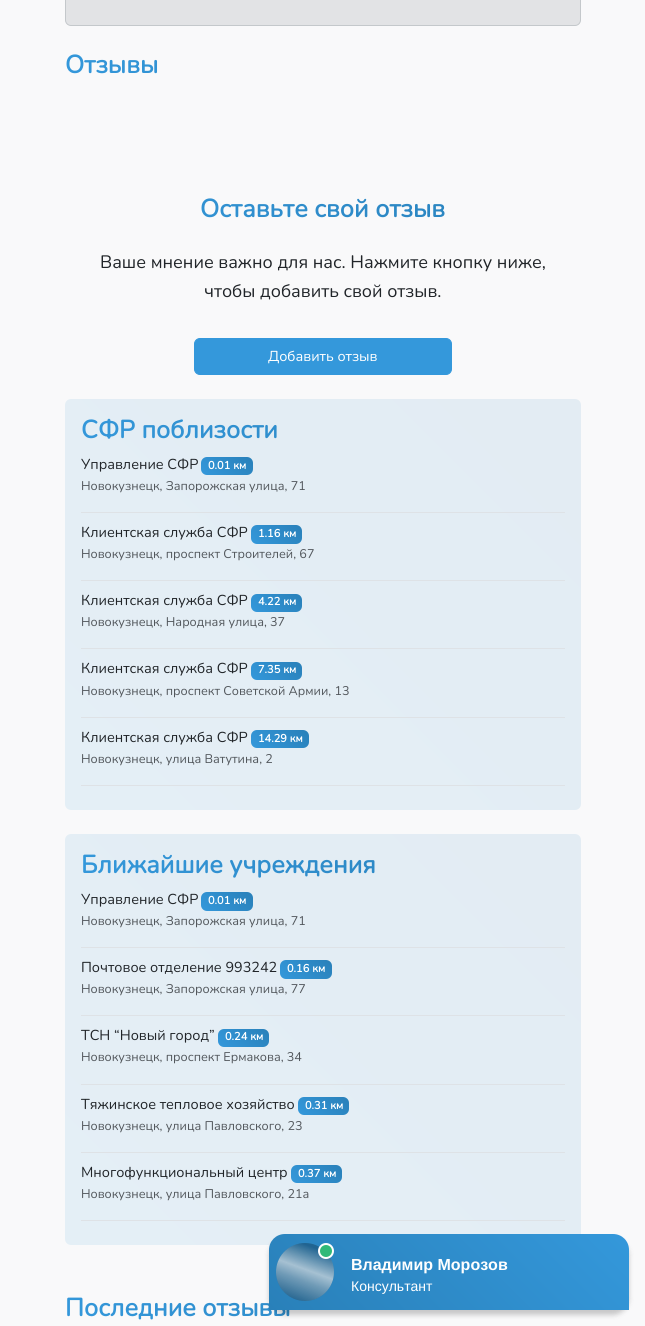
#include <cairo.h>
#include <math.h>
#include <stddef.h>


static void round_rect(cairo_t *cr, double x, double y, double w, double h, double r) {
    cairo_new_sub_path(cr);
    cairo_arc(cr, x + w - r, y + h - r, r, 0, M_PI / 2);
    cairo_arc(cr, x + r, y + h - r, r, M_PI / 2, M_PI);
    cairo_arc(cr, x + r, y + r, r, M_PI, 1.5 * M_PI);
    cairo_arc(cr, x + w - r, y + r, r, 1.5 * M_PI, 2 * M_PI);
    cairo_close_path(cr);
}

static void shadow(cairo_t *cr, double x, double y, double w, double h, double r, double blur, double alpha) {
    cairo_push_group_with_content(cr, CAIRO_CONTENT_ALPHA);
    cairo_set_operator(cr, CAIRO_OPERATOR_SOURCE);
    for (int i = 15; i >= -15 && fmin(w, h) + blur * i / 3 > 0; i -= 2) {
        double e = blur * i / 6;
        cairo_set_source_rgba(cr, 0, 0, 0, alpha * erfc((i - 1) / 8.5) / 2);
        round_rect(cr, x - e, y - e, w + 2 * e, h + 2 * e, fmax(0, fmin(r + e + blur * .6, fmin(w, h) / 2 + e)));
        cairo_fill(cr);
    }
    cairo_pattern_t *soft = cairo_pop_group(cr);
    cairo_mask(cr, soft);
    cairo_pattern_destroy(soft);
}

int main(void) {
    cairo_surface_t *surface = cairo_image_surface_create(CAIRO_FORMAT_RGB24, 645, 1326);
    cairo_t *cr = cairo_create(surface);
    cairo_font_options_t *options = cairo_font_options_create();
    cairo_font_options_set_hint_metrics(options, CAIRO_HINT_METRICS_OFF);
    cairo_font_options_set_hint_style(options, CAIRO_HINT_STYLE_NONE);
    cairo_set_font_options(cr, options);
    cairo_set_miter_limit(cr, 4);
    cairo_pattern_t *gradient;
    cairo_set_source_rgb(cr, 0.973, 0.976, 0.98);
    cairo_paint(cr);
    cairo_set_source_rgb(cr, 0.886, 0.89, 0.898);
    round_rect(cr, 65.5, -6.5, 515, 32, 5.5);
    cairo_fill_preserve(cr);
    cairo_set_source_rgb(cr, 0.769, 0.784, 0.796);
    cairo_set_line_width(cr, 1);
    cairo_stroke(cr);
    cairo_select_font_face(cr, "Nunito", CAIRO_FONT_SLANT_NORMAL, CAIRO_FONT_WEIGHT_BOLD);
    cairo_set_font_size(cr, 25.1);
    gradient = cairo_pattern_create_linear(186, 202, 459, -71);
    cairo_pattern_add_color_stop_rgba(gradient, 0, 0.204, 0.596, 0.859, 1);
    cairo_pattern_add_color_stop_rgba(gradient, 1, 0.161, 0.502, 0.725, 1);
    cairo_set_source(cr, gradient);
    cairo_pattern_destroy(gradient);
    cairo_move_to(cr, 65, 73);
    cairo_show_text(cr, "Отзывы");
    gradient = cairo_pattern_create_linear(194, 338, 451, 80);
    cairo_pattern_add_color_stop_rgba(gradient, 0, 0.204, 0.596, 0.859, 1);
    cairo_pattern_add_color_stop_rgba(gradient, 1, 0.161, 0.502, 0.725, 1);
    cairo_set_source(cr, gradient);
    cairo_pattern_destroy(gradient);
    cairo_move_to(cr, 200, 217);
    cairo_show_text(cr, "Оставьте свой отзыв");
    cairo_select_font_face(cr, "Nunito ExtraLight", CAIRO_FONT_SLANT_NORMAL, CAIRO_FONT_WEIGHT_NORMAL);
    cairo_set_font_size(cr, 18);
    cairo_set_source_rgb(cr, 0.129, 0.145, 0.161);
    cairo_move_to(cr, 100, 268);
    cairo_show_text(cr, "Ваше мнение важно для нас. Нажмите кнопку ниже,");
    cairo_move_to(cr, 204, 297);
    cairo_show_text(cr, "чтобы добавить свой отзыв.");
    cairo_set_source_rgb(cr, 0.204, 0.596, 0.859);
    round_rect(cr, 194.5, 338.5, 257, 36, 5.5);
    cairo_fill_preserve(cr);
    cairo_stroke(cr);
    cairo_set_font_size(cr, 14.4);
    cairo_set_source_rgb(cr, 1, 1, 1);
    cairo_move_to(cr, 268, 361);
    cairo_show_text(cr, "Добавить отзыв");
    gradient = cairo_pattern_create_linear(91, 836, 555, 373);
    cairo_pattern_add_color_stop_rgba(gradient, 0, 0.894, 0.937, 0.965, 1);
    cairo_pattern_add_color_stop_rgba(gradient, 1, 0.89, 0.925, 0.953, 1);
    cairo_set_source(cr, gradient);
    cairo_pattern_destroy(gradient);
    round_rect(cr, 65, 399, 516, 411, 6);
    cairo_fill(cr);
    cairo_select_font_face(cr, "Nunito", CAIRO_FONT_SLANT_NORMAL, CAIRO_FONT_WEIGHT_BOLD);
    cairo_set_font_size(cr, 25.1);
    gradient = cairo_pattern_create_linear(194, 558, 451, 301);
    cairo_pattern_add_color_stop_rgba(gradient, 0, 0.204, 0.596, 0.859, 1);
    cairo_pattern_add_color_stop_rgba(gradient, 1, 0.161, 0.502, 0.725, 1);
    cairo_set_source(cr, gradient);
    cairo_pattern_destroy(gradient);
    cairo_move_to(cr, 81, 438);
    cairo_show_text(cr, "СФР поблизости");
    cairo_set_source_rgb(cr, 0.871, 0.886, 0.902);
    cairo_rectangle(cr, 81, 512, 484, 1);
    cairo_fill(cr);
    cairo_select_font_face(cr, "Nunito ExtraLight", CAIRO_FONT_SLANT_NORMAL, CAIRO_FONT_WEIGHT_NORMAL);
    cairo_set_font_size(cr, 14.4);
    cairo_set_source_rgb(cr, 0.129, 0.145, 0.161);
    cairo_move_to(cr, 81, 469);
    cairo_show_text(cr, "Управление СФР");
    gradient = cairo_pattern_create_linear(210, 484, 245, 449);
    cairo_pattern_add_color_stop_rgba(gradient, 0, 0.204, 0.596, 0.859, 1);
    cairo_pattern_add_color_stop_rgba(gradient, 1, 0.161, 0.502, 0.725, 1);
    cairo_set_source(cr, gradient);
    cairo_pattern_destroy(gradient);
    round_rect(cr, 201, 457, 52, 18, 6);
    cairo_fill(cr);
    cairo_select_font_face(cr, "Nunito", CAIRO_FONT_SLANT_NORMAL, CAIRO_FONT_WEIGHT_BOLD);
    cairo_set_font_size(cr, 11);
    cairo_set_source_rgb(cr, 1, 1, 1);
    cairo_move_to(cr, 208, 469);
    cairo_show_text(cr, "0.01 км");
    cairo_select_font_face(cr, "Nunito ExtraLight", CAIRO_FONT_SLANT_NORMAL, CAIRO_FONT_WEIGHT_NORMAL);
    cairo_set_font_size(cr, 12.6);
    cairo_set_source_rgb(cr, 0.322, 0.341, 0.361);
    cairo_move_to(cr, 81, 490);
    cairo_show_text(cr, "Новокузнецк, Запорожская улица, 71");
    cairo_set_source_rgb(cr, 0.871, 0.886, 0.902);
    cairo_rectangle(cr, 81, 580, 484, 1);
    cairo_fill(cr);
    cairo_set_font_size(cr, 14.4);
    cairo_set_source_rgb(cr, 0.129, 0.145, 0.161);
    cairo_move_to(cr, 81, 537);
    cairo_show_text(cr, "Клиентская служба СФР");
    gradient = cairo_pattern_create_linear(259, 552, 294, 517);
    cairo_pattern_add_color_stop_rgba(gradient, 0, 0.204, 0.596, 0.859, 1);
    cairo_pattern_add_color_stop_rgba(gradient, 1, 0.161, 0.502, 0.725, 1);
    cairo_set_source(cr, gradient);
    cairo_pattern_destroy(gradient);
    round_rect(cr, 251, 525, 51, 19, 6);
    cairo_fill(cr);
    cairo_select_font_face(cr, "Nunito", CAIRO_FONT_SLANT_NORMAL, CAIRO_FONT_WEIGHT_BOLD);
    cairo_set_font_size(cr, 11);
    cairo_set_source_rgb(cr, 1, 1, 1);
    cairo_move_to(cr, 258, 537);
    cairo_show_text(cr, "1.16 км");
    cairo_select_font_face(cr, "Nunito ExtraLight", CAIRO_FONT_SLANT_NORMAL, CAIRO_FONT_WEIGHT_NORMAL);
    cairo_set_font_size(cr, 12.6);
    cairo_set_source_rgb(cr, 0.322, 0.341, 0.361);
    cairo_move_to(cr, 81, 558);
    cairo_show_text(cr, "Новокузнецк, проспект Строителей, 67");
    cairo_set_source_rgb(cr, 0.871, 0.886, 0.902);
    cairo_rectangle(cr, 81, 648, 484, 1);
    cairo_fill(cr);
    cairo_set_font_size(cr, 14.4);
    cairo_set_source_rgb(cr, 0.129, 0.145, 0.161);
    cairo_move_to(cr, 81, 605);
    cairo_show_text(cr, "Клиентская служба СФР");
    gradient = cairo_pattern_create_linear(259, 620, 294, 586);
    cairo_pattern_add_color_stop_rgba(gradient, 0, 0.204, 0.596, 0.859, 1);
    cairo_pattern_add_color_stop_rgba(gradient, 1, 0.161, 0.502, 0.725, 1);
    cairo_set_source(cr, gradient);
    cairo_pattern_destroy(gradient);
    round_rect(cr, 251, 594, 51, 18, 6);
    cairo_fill(cr);
    cairo_select_font_face(cr, "Nunito", CAIRO_FONT_SLANT_NORMAL, CAIRO_FONT_WEIGHT_BOLD);
    cairo_set_font_size(cr, 11);
    cairo_set_source_rgb(cr, 1, 1, 1);
    cairo_move_to(cr, 258, 605);
    cairo_show_text(cr, "4.22 км");
    cairo_select_font_face(cr, "Nunito ExtraLight", CAIRO_FONT_SLANT_NORMAL, CAIRO_FONT_WEIGHT_NORMAL);
    cairo_set_font_size(cr, 12.6);
    cairo_set_source_rgb(cr, 0.322, 0.341, 0.361);
    cairo_move_to(cr, 81, 626);
    cairo_show_text(cr, "Новокузнецк, Народная улица, 37");
    cairo_set_source_rgb(cr, 0.871, 0.886, 0.902);
    cairo_rectangle(cr, 81, 717, 484, 1);
    cairo_fill(cr);
    cairo_set_font_size(cr, 14.4);
    cairo_set_source_rgb(cr, 0.129, 0.145, 0.161);
    cairo_move_to(cr, 81, 673);
    cairo_show_text(cr, "Клиентская служба СФР");
    gradient = cairo_pattern_create_linear(259, 688, 294, 654);
    cairo_pattern_add_color_stop_rgba(gradient, 0, 0.204, 0.596, 0.859, 1);
    cairo_pattern_add_color_stop_rgba(gradient, 1, 0.161, 0.502, 0.725, 1);
    cairo_set_source(cr, gradient);
    cairo_pattern_destroy(gradient);
    round_rect(cr, 251, 662, 51, 18, 6);
    cairo_fill(cr);
    cairo_select_font_face(cr, "Nunito", CAIRO_FONT_SLANT_NORMAL, CAIRO_FONT_WEIGHT_BOLD);
    cairo_set_font_size(cr, 11);
    cairo_set_source_rgb(cr, 1, 1, 1);
    cairo_move_to(cr, 258, 673);
    cairo_show_text(cr, "7.35 км");
    cairo_select_font_face(cr, "Nunito ExtraLight", CAIRO_FONT_SLANT_NORMAL, CAIRO_FONT_WEIGHT_NORMAL);
    cairo_set_font_size(cr, 12.6);
    cairo_set_source_rgb(cr, 0.322, 0.341, 0.361);
    cairo_move_to(cr, 81, 695);
    cairo_show_text(cr, "Новокузнецк, проспект Советской Армии, 13");
    cairo_set_source_rgb(cr, 0.871, 0.886, 0.902);
    cairo_rectangle(cr, 81, 785, 484, 1);
    cairo_fill(cr);
    cairo_set_font_size(cr, 14.4);
    cairo_set_source_rgb(cr, 0.129, 0.145, 0.161);
    cairo_move_to(cr, 81, 742);
    cairo_show_text(cr, "Клиентская служба СФР");
    gradient = cairo_pattern_create_linear(261, 758, 299, 720);
    cairo_pattern_add_color_stop_rgba(gradient, 0, 0.204, 0.596, 0.859, 1);
    cairo_pattern_add_color_stop_rgba(gradient, 1, 0.161, 0.502, 0.725, 1);
    cairo_set_source(cr, gradient);
    cairo_pattern_destroy(gradient);
    round_rect(cr, 251, 730, 58, 18, 6);
    cairo_fill(cr);
    cairo_select_font_face(cr, "Nunito", CAIRO_FONT_SLANT_NORMAL, CAIRO_FONT_WEIGHT_BOLD);
    cairo_set_font_size(cr, 11);
    cairo_set_source_rgb(cr, 1, 1, 1);
    cairo_move_to(cr, 258, 742);
    cairo_show_text(cr, "14.29 км");
    cairo_select_font_face(cr, "Nunito ExtraLight", CAIRO_FONT_SLANT_NORMAL, CAIRO_FONT_WEIGHT_NORMAL);
    cairo_set_font_size(cr, 12.6);
    cairo_set_source_rgb(cr, 0.322, 0.341, 0.361);
    cairo_move_to(cr, 81, 763);
    cairo_show_text(cr, "Новокузнецк, улица Ватутина, 2");
    gradient = cairo_pattern_create_linear(91, 1271, 555, 808);
    cairo_pattern_add_color_stop_rgba(gradient, 0, 0.894, 0.937, 0.965, 1);
    cairo_pattern_add_color_stop_rgba(gradient, 1, 0.89, 0.925, 0.953, 1);
    cairo_set_source(cr, gradient);
    cairo_pattern_destroy(gradient);
    round_rect(cr, 65, 834, 516, 411, 6);
    cairo_fill(cr);
    cairo_select_font_face(cr, "Nunito", CAIRO_FONT_SLANT_NORMAL, CAIRO_FONT_WEIGHT_BOLD);
    cairo_set_font_size(cr, 25.1);
    gradient = cairo_pattern_create_linear(194, 993, 451, 736);
    cairo_pattern_add_color_stop_rgba(gradient, 0, 0.204, 0.596, 0.859, 1);
    cairo_pattern_add_color_stop_rgba(gradient, 1, 0.161, 0.502, 0.725, 1);
    cairo_set_source(cr, gradient);
    cairo_pattern_destroy(gradient);
    cairo_move_to(cr, 81, 873);
    cairo_show_text(cr, "Ближайшие учреждения");
    cairo_set_source_rgb(cr, 0.871, 0.886, 0.902);
    cairo_rectangle(cr, 81, 947, 484, 1);
    cairo_fill(cr);
    cairo_select_font_face(cr, "Nunito ExtraLight", CAIRO_FONT_SLANT_NORMAL, CAIRO_FONT_WEIGHT_NORMAL);
    cairo_set_font_size(cr, 14.4);
    cairo_set_source_rgb(cr, 0.129, 0.145, 0.161);
    cairo_move_to(cr, 81, 904);
    cairo_show_text(cr, "Управление СФР");
    gradient = cairo_pattern_create_linear(209, 919, 245, 884);
    cairo_pattern_add_color_stop_rgba(gradient, 0, 0.204, 0.596, 0.859, 1);
    cairo_pattern_add_color_stop_rgba(gradient, 1, 0.161, 0.502, 0.725, 1);
    cairo_set_source(cr, gradient);
    cairo_pattern_destroy(gradient);
    round_rect(cr, 201, 892, 52, 19, 6);
    cairo_fill(cr);
    cairo_select_font_face(cr, "Nunito", CAIRO_FONT_SLANT_NORMAL, CAIRO_FONT_WEIGHT_BOLD);
    cairo_set_font_size(cr, 11);
    cairo_set_source_rgb(cr, 1, 1, 1);
    cairo_move_to(cr, 208, 904);
    cairo_show_text(cr, "0.01 км");
    cairo_select_font_face(cr, "Nunito ExtraLight", CAIRO_FONT_SLANT_NORMAL, CAIRO_FONT_WEIGHT_NORMAL);
    cairo_set_font_size(cr, 12.6);
    cairo_set_source_rgb(cr, 0.322, 0.341, 0.361);
    cairo_move_to(cr, 81, 925);
    cairo_show_text(cr, "Новокузнецк, Запорожская улица, 71");
    cairo_set_source_rgb(cr, 0.871, 0.886, 0.902);
    cairo_rectangle(cr, 81, 1015, 484, 1);
    cairo_fill(cr);
    cairo_set_font_size(cr, 14.4);
    cairo_set_source_rgb(cr, 0.129, 0.145, 0.161);
    cairo_move_to(cr, 81, 972);
    cairo_show_text(cr, "Почтовое отделение 993242");
    gradient = cairo_pattern_create_linear(288, 987, 324, 952);
    cairo_pattern_add_color_stop_rgba(gradient, 0, 0.204, 0.596, 0.859, 1);
    cairo_pattern_add_color_stop_rgba(gradient, 1, 0.161, 0.502, 0.725, 1);
    cairo_set_source(cr, gradient);
    cairo_pattern_destroy(gradient);
    round_rect(cr, 280, 960, 52, 19, 6);
    cairo_fill(cr);
    cairo_select_font_face(cr, "Nunito", CAIRO_FONT_SLANT_NORMAL, CAIRO_FONT_WEIGHT_BOLD);
    cairo_set_font_size(cr, 11);
    cairo_set_source_rgb(cr, 1, 1, 1);
    cairo_move_to(cr, 287, 972);
    cairo_show_text(cr, "0.16 км");
    cairo_select_font_face(cr, "Nunito ExtraLight", CAIRO_FONT_SLANT_NORMAL, CAIRO_FONT_WEIGHT_NORMAL);
    cairo_set_font_size(cr, 12.6);
    cairo_set_source_rgb(cr, 0.322, 0.341, 0.361);
    cairo_move_to(cr, 81, 993);
    cairo_show_text(cr, "Новокузнецк, Запорожская улица, 77");
    cairo_set_source_rgb(cr, 0.871, 0.886, 0.902);
    cairo_rectangle(cr, 81, 1084, 484, 1);
    cairo_fill(cr);
    cairo_set_font_size(cr, 14.4);
    cairo_set_source_rgb(cr, 0.129, 0.145, 0.161);
    cairo_move_to(cr, 81, 1040);
    cairo_show_text(cr, "ТСН “Новый город”");
    gradient = cairo_pattern_create_linear(226, 1055, 261, 1021);
    cairo_pattern_add_color_stop_rgba(gradient, 0, 0.204, 0.596, 0.859, 1);
    cairo_pattern_add_color_stop_rgba(gradient, 1, 0.161, 0.502, 0.725, 1);
    cairo_set_source(cr, gradient);
    cairo_pattern_destroy(gradient);
    round_rect(cr, 218, 1029, 51, 18, 6);
    cairo_fill(cr);
    cairo_select_font_face(cr, "Nunito", CAIRO_FONT_SLANT_NORMAL, CAIRO_FONT_WEIGHT_BOLD);
    cairo_set_font_size(cr, 11);
    cairo_set_source_rgb(cr, 1, 1, 1);
    cairo_move_to(cr, 225, 1040);
    cairo_show_text(cr, "0.24 км");
    cairo_select_font_face(cr, "Nunito ExtraLight", CAIRO_FONT_SLANT_NORMAL, CAIRO_FONT_WEIGHT_NORMAL);
    cairo_set_font_size(cr, 12.6);
    cairo_set_source_rgb(cr, 0.322, 0.341, 0.361);
    cairo_move_to(cr, 81, 1061);
    cairo_show_text(cr, "Новокузнецк, проспект Ермакова, 34");
    cairo_set_source_rgb(cr, 0.871, 0.886, 0.902);
    cairo_rectangle(cr, 81, 1152, 484, 1);
    cairo_fill(cr);
    cairo_set_font_size(cr, 14.4);
    cairo_set_source_rgb(cr, 0.129, 0.145, 0.161);
    cairo_move_to(cr, 81, 1109);
    cairo_show_text(cr, "Тяжинское тепловое хозяйство");
    gradient = cairo_pattern_create_linear(306, 1123, 341, 1089);
    cairo_pattern_add_color_stop_rgba(gradient, 0, 0.204, 0.596, 0.859, 1);
    cairo_pattern_add_color_stop_rgba(gradient, 1, 0.161, 0.502, 0.725, 1);
    cairo_set_source(cr, gradient);
    cairo_pattern_destroy(gradient);
    round_rect(cr, 298, 1097, 51, 18, 6);
    cairo_fill(cr);
    cairo_select_font_face(cr, "Nunito", CAIRO_FONT_SLANT_NORMAL, CAIRO_FONT_WEIGHT_BOLD);
    cairo_set_font_size(cr, 11);
    cairo_set_source_rgb(cr, 1, 1, 1);
    cairo_move_to(cr, 305, 1109);
    cairo_show_text(cr, "0.31 км");
    cairo_select_font_face(cr, "Nunito ExtraLight", CAIRO_FONT_SLANT_NORMAL, CAIRO_FONT_WEIGHT_NORMAL);
    cairo_set_font_size(cr, 12.6);
    cairo_set_source_rgb(cr, 0.322, 0.341, 0.361);
    cairo_move_to(cr, 81, 1130);
    cairo_show_text(cr, "Новокузнецк, улица Павловского, 23");
    cairo_set_source_rgb(cr, 0.871, 0.886, 0.902);
    cairo_rectangle(cr, 81, 1220, 484, 1);
    cairo_fill(cr);
    cairo_set_font_size(cr, 14.4);
    cairo_set_source_rgb(cr, 0.129, 0.145, 0.161);
    cairo_move_to(cr, 81, 1177);
    cairo_show_text(cr, "Многофункциональный центр");
    gradient = cairo_pattern_create_linear(299, 1191, 334, 1157);
    cairo_pattern_add_color_stop_rgba(gradient, 0, 0.204, 0.596, 0.859, 1);
    cairo_pattern_add_color_stop_rgba(gradient, 1, 0.161, 0.502, 0.725, 1);
    cairo_set_source(cr, gradient);
    cairo_pattern_destroy(gradient);
    round_rect(cr, 291, 1165, 51, 18, 6);
    cairo_fill(cr);
    cairo_select_font_face(cr, "Nunito", CAIRO_FONT_SLANT_NORMAL, CAIRO_FONT_WEIGHT_BOLD);
    cairo_set_font_size(cr, 11);
    cairo_set_source_rgb(cr, 1, 1, 1);
    cairo_move_to(cr, 298, 1177);
    cairo_show_text(cr, "0.37 км");
    cairo_select_font_face(cr, "Nunito ExtraLight", CAIRO_FONT_SLANT_NORMAL, CAIRO_FONT_WEIGHT_NORMAL);
    cairo_set_font_size(cr, 12.6);
    cairo_set_source_rgb(cr, 0.322, 0.341, 0.361);
    cairo_move_to(cr, 81, 1198);
    cairo_show_text(cr, "Новокузнецк, улица Павловского, 21а");
    cairo_select_font_face(cr, "Nunito", CAIRO_FONT_SLANT_NORMAL, CAIRO_FONT_WEIGHT_BOLD);
    cairo_set_font_size(cr, 25.1);
    gradient = cairo_pattern_create_linear(186, 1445, 459, 1171);
    cairo_pattern_add_color_stop_rgba(gradient, 0, 0.204, 0.596, 0.859, 1);
    cairo_pattern_add_color_stop_rgba(gradient, 1, 0.161, 0.502, 0.725, 1);
    cairo_set_source(cr, gradient);
    cairo_pattern_destroy(gradient);
    cairo_move_to(cr, 65, 1316);
    cairo_show_text(cr, "Последние отзывы");
    cairo_set_source_rgb(cr, 0, 0, 0);
    shadow(cr, 269, 1239, 360, 76, 16, 2.5, 0.2);
    gradient = cairo_pattern_create_linear(558, 1163, 340, 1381);
    cairo_pattern_add_color_stop_rgba(gradient, 0, 0.204, 0.596, 0.859, 1);
    cairo_pattern_add_color_stop_rgba(gradient, 1, 0.161, 0.502, 0.725, 1);
    cairo_set_source(cr, gradient);
    cairo_pattern_destroy(gradient);
    cairo_new_path(cr);
    cairo_move_to(cr, 285, 1234);
    cairo_line_to(cr, 613, 1234);
    cairo_curve_to(cr, 622, 1234, 629, 1241, 629, 1250);
    cairo_line_to(cr, 629, 1310);
    cairo_line_to(cr, 269, 1310);
    cairo_line_to(cr, 269, 1250);
    cairo_curve_to(cr, 269, 1241, 276, 1234, 285, 1234);
    cairo_close_path(cr);
    cairo_fill(cr);
    cairo_set_source_rgba(cr, 0, 0, 0, 0.25);
    cairo_arc(cr, 305, 1272, 29, 0, 2 * M_PI);
    cairo_fill(cr);
    gradient = cairo_pattern_create_linear(315, 1248, 295, 1303);
    cairo_pattern_add_color_stop_rgba(gradient, 0, 1, 1, 1, 0);
    cairo_pattern_add_color_stop_rgba(gradient, 0.4, 1, 1, 1, 0.6);
    cairo_pattern_add_color_stop_rgba(gradient, 0.6, 1, 1, 1, 0.36);
    cairo_pattern_add_color_stop_rgba(gradient, 1, 1, 1, 1, 0);
    cairo_set_source(cr, gradient);
    cairo_pattern_destroy(gradient);
    cairo_new_path(cr);
    cairo_move_to(cr, 302, 1243);
    cairo_line_to(cr, 326, 1252);
    cairo_curve_to(cr, 331, 1257, 334, 1264, 334, 1272);
    cairo_curve_to(cr, 334, 1288, 321, 1301, 305, 1301);
    cairo_curve_to(cr, 289, 1301, 276, 1288, 276, 1272);
    cairo_curve_to(cr, 276, 1257, 287, 1245, 302, 1243);
    cairo_close_path(cr);
    cairo_fill(cr);
    cairo_set_source_rgb(cr, 0.192, 0.725, 0.471);
    cairo_arc(cr, 326, 1251, 7, 0, 2 * M_PI);
    cairo_fill_preserve(cr);
    cairo_set_source_rgb(cr, 1, 1, 1);
    cairo_set_line_width(cr, 2);
    cairo_stroke(cr);
    cairo_select_font_face(cr, "Liberation Sans", CAIRO_FONT_SLANT_NORMAL, CAIRO_FONT_WEIGHT_BOLD);
    cairo_set_font_size(cr, 16);
    cairo_move_to(cr, 351, 1270);
    cairo_show_text(cr, "Владимир Морозов");
    cairo_select_font_face(cr, "Liberation Sans", CAIRO_FONT_SLANT_NORMAL, CAIRO_FONT_WEIGHT_NORMAL);
    cairo_set_font_size(cr, 14);
    cairo_move_to(cr, 351, 1291);
    cairo_show_text(cr, "Консультант");
    cairo_surface_write_to_png(surface, "page.png");
    cairo_font_options_destroy(options);
    cairo_destroy(cr);
    cairo_surface_destroy(surface);
    return 0;
}
